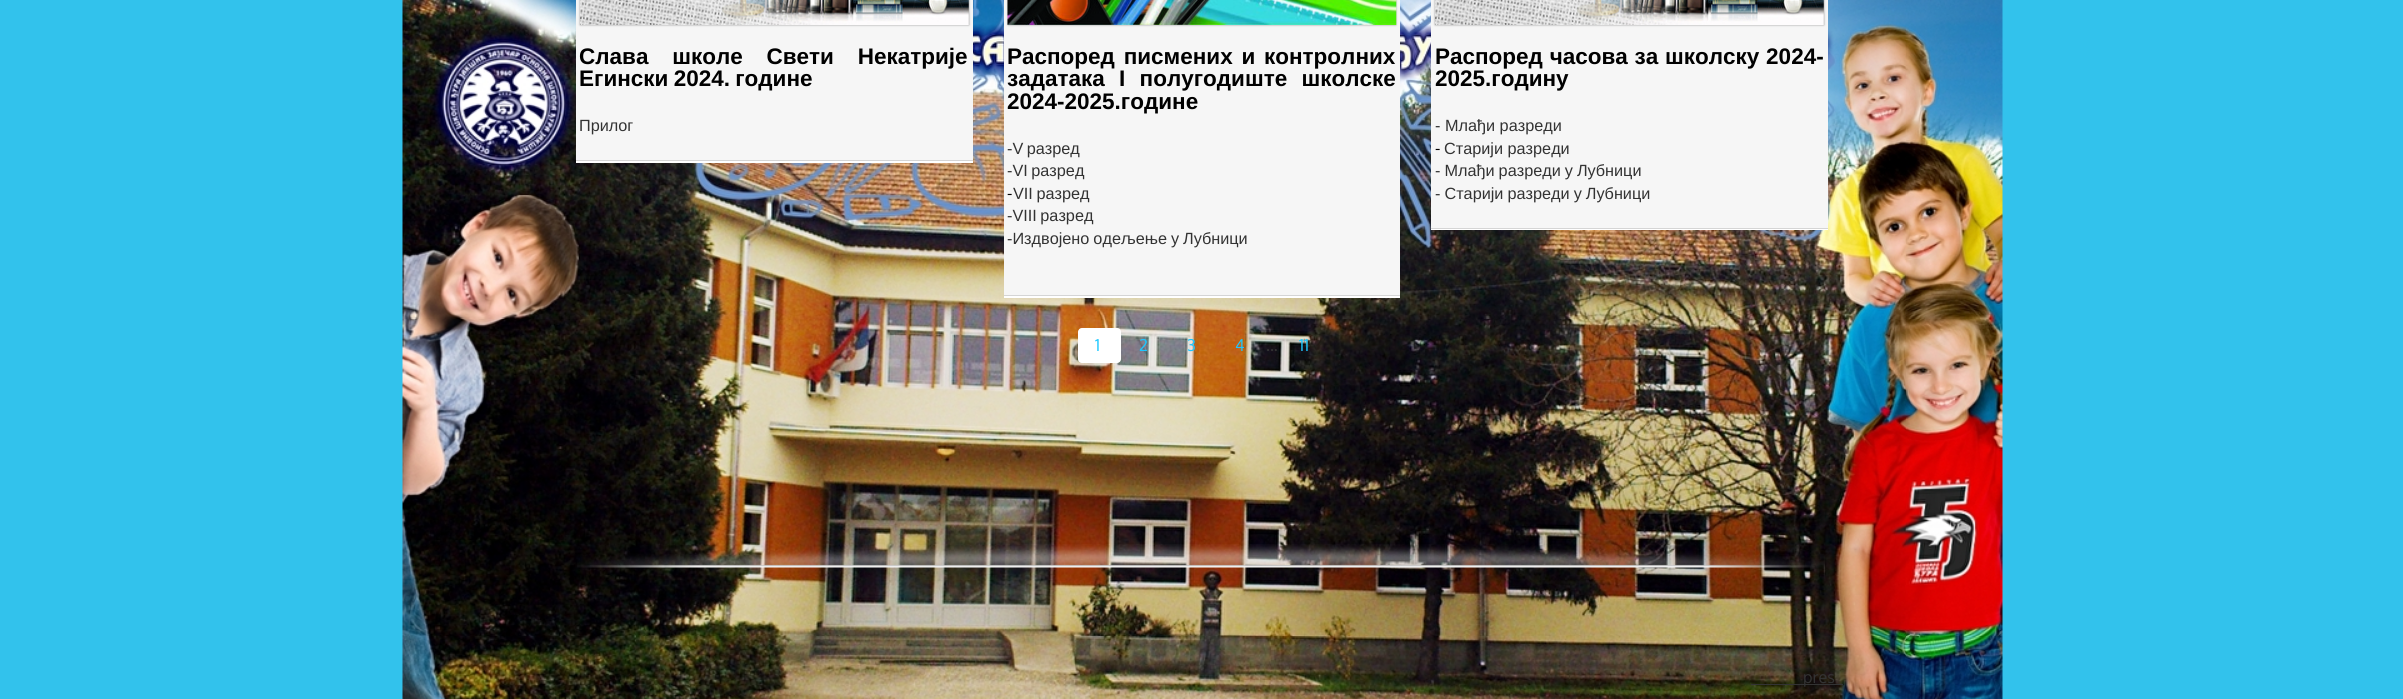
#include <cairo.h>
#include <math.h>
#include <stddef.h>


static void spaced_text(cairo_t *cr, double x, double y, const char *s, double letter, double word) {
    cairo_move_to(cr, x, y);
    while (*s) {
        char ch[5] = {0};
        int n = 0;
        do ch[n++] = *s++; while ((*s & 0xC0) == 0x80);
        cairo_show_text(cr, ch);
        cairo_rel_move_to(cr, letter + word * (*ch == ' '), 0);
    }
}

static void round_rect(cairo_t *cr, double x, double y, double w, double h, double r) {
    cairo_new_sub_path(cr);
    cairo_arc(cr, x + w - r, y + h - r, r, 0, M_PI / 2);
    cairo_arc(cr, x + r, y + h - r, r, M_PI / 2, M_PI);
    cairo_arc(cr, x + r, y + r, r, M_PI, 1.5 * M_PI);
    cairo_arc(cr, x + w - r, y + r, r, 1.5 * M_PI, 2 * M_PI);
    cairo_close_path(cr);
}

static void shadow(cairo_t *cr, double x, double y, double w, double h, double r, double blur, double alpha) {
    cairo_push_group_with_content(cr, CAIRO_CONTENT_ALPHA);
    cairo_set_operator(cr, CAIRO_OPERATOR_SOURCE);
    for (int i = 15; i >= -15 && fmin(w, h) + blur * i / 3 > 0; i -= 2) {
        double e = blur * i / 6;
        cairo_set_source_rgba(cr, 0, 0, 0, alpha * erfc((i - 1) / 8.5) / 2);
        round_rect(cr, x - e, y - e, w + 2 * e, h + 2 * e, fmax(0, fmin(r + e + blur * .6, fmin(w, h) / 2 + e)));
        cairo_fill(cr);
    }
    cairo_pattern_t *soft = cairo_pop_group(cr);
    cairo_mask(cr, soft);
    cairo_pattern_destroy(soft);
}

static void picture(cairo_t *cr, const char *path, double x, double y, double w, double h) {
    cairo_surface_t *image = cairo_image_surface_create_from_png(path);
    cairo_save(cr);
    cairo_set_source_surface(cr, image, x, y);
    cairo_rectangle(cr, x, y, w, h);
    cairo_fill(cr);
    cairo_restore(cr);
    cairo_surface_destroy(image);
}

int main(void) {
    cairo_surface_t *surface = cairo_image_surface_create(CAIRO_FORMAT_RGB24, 2403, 699);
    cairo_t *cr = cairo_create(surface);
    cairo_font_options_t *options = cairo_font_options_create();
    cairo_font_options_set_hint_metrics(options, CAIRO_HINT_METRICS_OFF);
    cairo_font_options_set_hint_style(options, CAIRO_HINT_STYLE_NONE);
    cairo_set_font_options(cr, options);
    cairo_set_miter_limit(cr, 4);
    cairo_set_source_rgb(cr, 0.196, 0.761, 0.925);
    cairo_paint(cr);
    picture(cr, "img1.png", 402, 0, 1601, 699);
    cairo_set_source_rgb(cr, 1, 1, 1);
    cairo_new_path(cr);
    cairo_move_to(cr, 576, -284);
    cairo_line_to(cr, 576, 163);
    cairo_line_to(cr, 973, 163);
    cairo_line_to(cr, 973, -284);
    cairo_line_to(cr, 972, -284);
    cairo_line_to(cr, 972, 161);
    cairo_line_to(cr, 576, 161);
    cairo_close_path(cr);
    cairo_fill(cr);
    cairo_set_source_rgb(cr, 0.961, 0.961, 0.961);
    cairo_rectangle(cr, 576, 0, 397, 160);
    cairo_fill(cr);
    cairo_set_source_rgb(cr, 0.835, 0.835, 0.835);
    cairo_rectangle(cr, 576, 160, 397, 1);
    cairo_fill(cr);
    cairo_set_source_rgb(cr, 0.6, 0.6, 0.6);
    shadow(cr, 580, -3, 389, 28, 0, 1, 1);
    picture(cr, "img2.png", 580, 0, 389, 25);
    cairo_select_font_face(cr, "Liberation Sans", CAIRO_FONT_SLANT_NORMAL, CAIRO_FONT_WEIGHT_BOLD);
    cairo_set_font_size(cr, 22.5);
    cairo_set_source_rgb(cr, 0, 0, 0);
    spaced_text(cr, 579, 64, "Слава школе Свети Некатрије", 0, 17.5);
    spaced_text(cr, 579, 86, "Егински 2024. године", 0, -1);
    cairo_select_font_face(cr, "Liberation Sans", CAIRO_FONT_SLANT_NORMAL, CAIRO_FONT_WEIGHT_NORMAL);
    cairo_set_font_size(cr, 16.25);
    cairo_set_source_rgb(cr, 0.2, 0.2, 0.2);
    cairo_move_to(cr, 579, 131);
    cairo_show_text(cr, "Прилог");
    cairo_set_source_rgb(cr, 1, 1, 1);
    cairo_rectangle(cr, 1004, 296, 396, 2);
    cairo_fill(cr);
    cairo_set_source_rgb(cr, 0.961, 0.961, 0.961);
    cairo_rectangle(cr, 1004, 0, 396, 295);
    cairo_fill(cr);
    cairo_set_source_rgb(cr, 0.835, 0.835, 0.835);
    cairo_rectangle(cr, 1004, 295, 396, 1);
    cairo_fill(cr);
    cairo_set_source_rgb(cr, 0.6, 0.6, 0.6);
    shadow(cr, 1008, -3, 388, 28, 0, 1, 1);
    picture(cr, "img3.png", 1007, 0, 390, 25);
    cairo_select_font_face(cr, "Liberation Sans", CAIRO_FONT_SLANT_NORMAL, CAIRO_FONT_WEIGHT_BOLD);
    cairo_set_font_size(cr, 22.5);
    cairo_set_source_rgb(cr, 0, 0, 0);
    spaced_text(cr, 1007, 64, "Распоред писмених и контролних", 0, 2.5);
    spaced_text(cr, 1007, 86, "задатака I полугодиште школске", 0, 8);
    cairo_move_to(cr, 1007, 109);
    cairo_show_text(cr, "2024-2025.године");
    cairo_select_font_face(cr, "Liberation Sans", CAIRO_FONT_SLANT_NORMAL, CAIRO_FONT_WEIGHT_NORMAL);
    cairo_set_font_size(cr, 16.25);
    cairo_set_source_rgb(cr, 0.2, 0.2, 0.2);
    spaced_text(cr, 1007, 154, "-V разред", 0, -1);
    spaced_text(cr, 1007, 176, "-VI разред", 0, -1);
    cairo_select_font_face(cr, "Oxygen", CAIRO_FONT_SLANT_NORMAL, CAIRO_FONT_WEIGHT_NORMAL);
    cairo_set_source_rgb(cr, 0, 0, 0);
    cairo_move_to(cr, 1007, 199);
    cairo_show_text(cr, "-");
    cairo_select_font_face(cr, "Liberation Sans", CAIRO_FONT_SLANT_NORMAL, CAIRO_FONT_WEIGHT_NORMAL);
    cairo_set_source_rgb(cr, 0.2, 0.2, 0.2);
    spaced_text(cr, 1013, 199, "VII разред", 0, -1);
    spaced_text(cr, 1007, 221, "-VIII разред", 0, -1);
    spaced_text(cr, 1007, 244, "-Издвојено одељење у Лубници", 0, -0.5);
    cairo_set_source_rgb(cr, 1, 1, 1);
    cairo_new_path(cr);
    cairo_move_to(cr, 1431, -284);
    cairo_line_to(cr, 1431, 230);
    cairo_line_to(cr, 1828, 230);
    cairo_line_to(cr, 1828, -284);
    cairo_line_to(cr, 1828, 229);
    cairo_line_to(cr, 1431, 229);
    cairo_close_path(cr);
    cairo_fill(cr);
    cairo_set_source_rgb(cr, 0.961, 0.961, 0.961);
    cairo_rectangle(cr, 1431, 0, 397, 228);
    cairo_fill(cr);
    cairo_set_source_rgb(cr, 0.835, 0.835, 0.835);
    cairo_rectangle(cr, 1431, 228, 397, 1);
    cairo_fill(cr);
    cairo_set_source_rgb(cr, 0.6, 0.6, 0.6);
    shadow(cr, 1435, -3, 389, 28, 0, 1, 1);
    picture(cr, "img2.png", 1435, 0, 389, 25);
    cairo_select_font_face(cr, "Liberation Sans", CAIRO_FONT_SLANT_NORMAL, CAIRO_FONT_WEIGHT_BOLD);
    cairo_set_font_size(cr, 22.5);
    cairo_set_source_rgb(cr, 0, 0, 0);
    spaced_text(cr, 1435, 64, "Распоред часова за школску 2024-", 0, 0.5);
    cairo_move_to(cr, 1435, 86);
    cairo_show_text(cr, "2025.годину");
    cairo_select_font_face(cr, "Liberation Sans", CAIRO_FONT_SLANT_NORMAL, CAIRO_FONT_WEIGHT_NORMAL);
    cairo_set_font_size(cr, 16.25);
    cairo_set_source_rgb(cr, 0.2, 0.2, 0.2);
    cairo_move_to(cr, 1435, 131);
    cairo_show_text(cr, "- Млађи разреди");
    cairo_select_font_face(cr, "Oxygen", CAIRO_FONT_SLANT_NORMAL, CAIRO_FONT_WEIGHT_NORMAL);
    cairo_set_source_rgb(cr, 0, 0, 0);
    cairo_move_to(cr, 1435, 154);
    cairo_show_text(cr, "-");
    cairo_select_font_face(cr, "Liberation Sans", CAIRO_FONT_SLANT_NORMAL, CAIRO_FONT_WEIGHT_NORMAL);
    cairo_set_source_rgb(cr, 0.2, 0.2, 0.2);
    cairo_move_to(cr, 1444, 154);
    cairo_show_text(cr, "Старији разреди");
    spaced_text(cr, 1435, 176, "- Млађи разреди у Лубници", 0, -0.5);
    spaced_text(cr, 1435, 199, "- Старији разреди у Лубници", 0, -0.5);
    cairo_set_source_rgb(cr, 1, 1, 1);
    round_rect(cr, 1078, 328, 43, 35, 4);
    cairo_fill(cr);
    cairo_select_font_face(cr, "Oxygen", CAIRO_FONT_SLANT_NORMAL, CAIRO_FONT_WEIGHT_NORMAL);
    cairo_set_source_rgb(cr, 0.11, 0.78, 1);
    cairo_move_to(cr, 1095, 351);
    cairo_show_text(cr, "1");
    cairo_move_to(cr, 1139, 351);
    cairo_show_text(cr, "2");
    cairo_move_to(cr, 1187, 351);
    cairo_show_text(cr, "3");
    cairo_move_to(cr, 1235, 351);
    cairo_show_text(cr, "4");
    cairo_set_source_rgb(cr, 0.2, 0.2, 0.2);
    cairo_move_to(cr, 1266, 351);
    cairo_show_text(cr, "...");
    cairo_set_source_rgb(cr, 0.11, 0.78, 1);
    cairo_move_to(cr, 1299, 351);
    cairo_show_text(cr, "11");
    picture(cr, "img4.png", 577, 544, 1248, 37);
    cairo_set_source_rgb(cr, 0.2, 0.2, 0.2);
    cairo_rectangle(cr, 1751, 684, 92, 1);
    cairo_fill(cr);
    cairo_move_to(cr, 1803, 683);
    cairo_show_text(cr, "pres");
    cairo_surface_write_to_png(surface, "page.png");
    cairo_font_options_destroy(options);
    cairo_destroy(cr);
    cairo_surface_destroy(surface);
    return 0;
}
